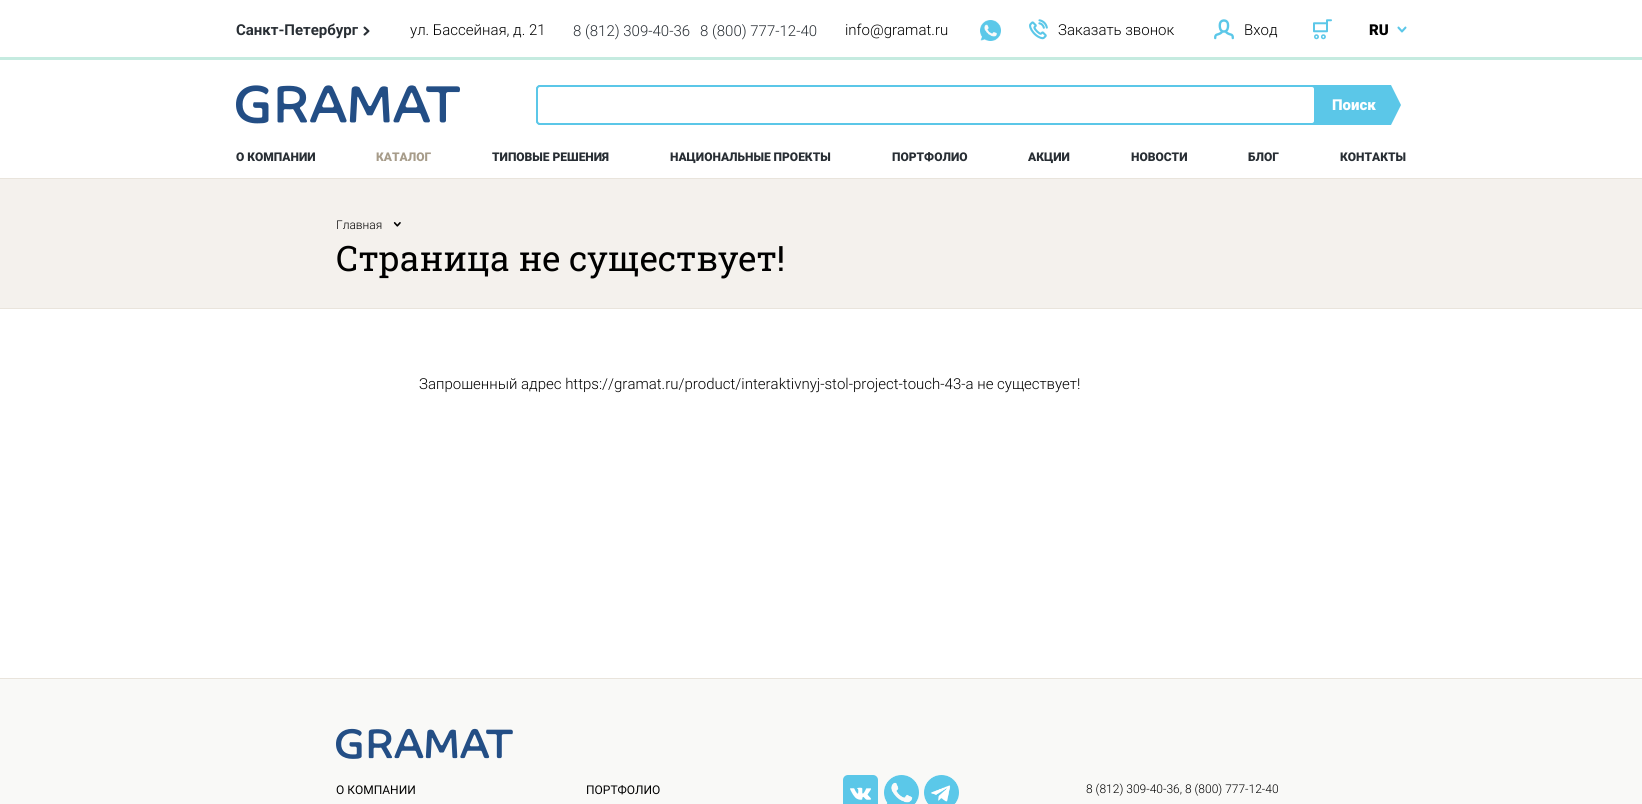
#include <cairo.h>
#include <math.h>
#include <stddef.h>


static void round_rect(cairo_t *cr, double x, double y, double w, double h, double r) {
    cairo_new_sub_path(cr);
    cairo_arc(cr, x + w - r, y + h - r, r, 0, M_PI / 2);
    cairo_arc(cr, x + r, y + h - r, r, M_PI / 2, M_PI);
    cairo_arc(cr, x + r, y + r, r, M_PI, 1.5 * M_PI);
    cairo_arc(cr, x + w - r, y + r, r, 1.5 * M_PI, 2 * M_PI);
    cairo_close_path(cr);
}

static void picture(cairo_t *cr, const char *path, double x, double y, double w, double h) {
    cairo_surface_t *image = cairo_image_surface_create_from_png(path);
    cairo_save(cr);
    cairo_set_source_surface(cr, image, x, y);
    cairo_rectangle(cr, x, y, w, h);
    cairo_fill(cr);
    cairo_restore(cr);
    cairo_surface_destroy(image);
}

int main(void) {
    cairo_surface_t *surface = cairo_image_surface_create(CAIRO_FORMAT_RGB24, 1642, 804);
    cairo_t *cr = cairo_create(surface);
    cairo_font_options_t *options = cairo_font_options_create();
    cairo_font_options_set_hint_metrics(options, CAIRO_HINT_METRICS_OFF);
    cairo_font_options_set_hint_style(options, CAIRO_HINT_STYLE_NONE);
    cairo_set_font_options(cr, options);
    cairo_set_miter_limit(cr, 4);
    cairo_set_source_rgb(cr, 1, 1, 1);
    cairo_paint(cr);
    cairo_set_source_rgb(cr, 0.773, 0.918, 0.878);
    cairo_rectangle(cr, 0, 57, 1642, 3);
    cairo_fill(cr);
    cairo_select_font_face(cr, "Roboto", CAIRO_FONT_SLANT_NORMAL, CAIRO_FONT_WEIGHT_BOLD);
    cairo_set_font_size(cr, 15);
    cairo_set_source_rgb(cr, 0.157, 0.18, 0.204);
    cairo_move_to(cr, 236, 35);
    cairo_show_text(cr, "Санкт-Петербург");
    picture(cr, "img1.png", 363, 26, 7, 10);
    cairo_select_font_face(cr, "Roboto Light", CAIRO_FONT_SLANT_NORMAL, CAIRO_FONT_WEIGHT_NORMAL);
    cairo_set_source_rgb(cr, 0, 0, 0);
    cairo_move_to(cr, 410, 35);
    cairo_show_text(cr, "ул. Бассейная, д. 21");
    cairo_set_source_rgb(cr, 0.157, 0.18, 0.204);
    cairo_move_to(cr, 573, 36);
    cairo_show_text(cr, "8 (812) 309-40-36");
    cairo_move_to(cr, 700, 36);
    cairo_show_text(cr, "8 (800) 777-12-40");
    cairo_set_source_rgb(cr, 0, 0, 0);
    cairo_move_to(cr, 845, 35);
    cairo_show_text(cr, "info@gramat.ru");
    picture(cr, "img2.png", 980, 20, 21, 21);
    picture(cr, "img3.png", 1029, 19, 19, 21);
    cairo_move_to(cr, 1058, 35);
    cairo_show_text(cr, "Заказать звонок");
    picture(cr, "img4.png", 1214, 19, 20, 21);
    cairo_move_to(cr, 1244, 35);
    cairo_show_text(cr, "Вход");
    picture(cr, "img5.png", 1313, 19, 19, 21);
    cairo_select_font_face(cr, "Roboto Black", CAIRO_FONT_SLANT_NORMAL, CAIRO_FONT_WEIGHT_NORMAL);
    cairo_move_to(cr, 1369, 35);
    cairo_show_text(cr, "RU");
    picture(cr, "img6.png", 1397, 26, 10, 7);
    picture(cr, "img7.png", 236, 85, 224, 39);
    cairo_set_source_rgb(cr, 0.357, 0.78, 0.91);
    cairo_new_path(cr);
    cairo_move_to(cr, 540, 85);
    cairo_line_to(cr, 1391, 85);
    cairo_line_to(cr, 1391, 125);
    cairo_line_to(cr, 540, 125);
    cairo_curve_to(cr, 538, 125, 536, 123, 536, 121);
    cairo_line_to(cr, 536, 89);
    cairo_curve_to(cr, 536, 87, 538, 85, 540, 85);
    cairo_close_path(cr);
    cairo_fill(cr);
    cairo_set_source_rgb(cr, 1, 1, 1);
    round_rect(cr, 537, 86, 778, 38, 3);
    cairo_fill_preserve(cr);
    cairo_set_source_rgb(cr, 0.357, 0.78, 0.91);
    cairo_stroke(cr);
    cairo_set_source_rgb(cr, 1, 1, 1);
    cairo_move_to(cr, 1332, 110);
    cairo_show_text(cr, "Поиск");
    cairo_set_source_rgb(cr, 0.357, 0.78, 0.91);
    cairo_new_path(cr);
    cairo_move_to(cr, 1391, 125);
    cairo_line_to(cr, 1391, 85);
    cairo_line_to(cr, 1401, 105);
    cairo_close_path(cr);
    cairo_fill(cr);
    cairo_set_font_size(cr, 12);
    cairo_set_source_rgb(cr, 0.157, 0.18, 0.204);
    cairo_move_to(cr, 236, 161);
    cairo_show_text(cr, "О КОМПАНИИ");
    cairo_set_source_rgb(cr, 0.655, 0.612, 0.541);
    cairo_move_to(cr, 376, 161);
    cairo_show_text(cr, "КАТАЛОГ");
    cairo_set_source_rgb(cr, 0.157, 0.18, 0.204);
    cairo_move_to(cr, 492, 161);
    cairo_show_text(cr, "ТИПОВЫЕ РЕШЕНИЯ");
    cairo_move_to(cr, 670, 161);
    cairo_show_text(cr, "НАЦИОНАЛЬНЫЕ ПРОЕКТЫ");
    cairo_move_to(cr, 892, 161);
    cairo_show_text(cr, "ПОРТФОЛИО");
    cairo_move_to(cr, 1028, 161);
    cairo_show_text(cr, "АКЦИИ");
    cairo_move_to(cr, 1131, 161);
    cairo_show_text(cr, "НОВОСТИ");
    cairo_move_to(cr, 1248, 161);
    cairo_show_text(cr, "БЛОГ");
    cairo_move_to(cr, 1340, 161);
    cairo_show_text(cr, "КОНТАКТЫ");
    cairo_set_source_rgb(cr, 0.957, 0.945, 0.929);
    cairo_rectangle(cr, 0, 179, 1642, 129);
    cairo_fill(cr);
    cairo_set_source_rgb(cr, 0.914, 0.894, 0.863);
    cairo_rectangle(cr, 0, 178, 1642, 1);
    cairo_fill(cr);
    cairo_rectangle(cr, 0, 308, 1642, 1);
    cairo_fill(cr);
    cairo_select_font_face(cr, "Roboto Light", CAIRO_FONT_SLANT_NORMAL, CAIRO_FONT_WEIGHT_NORMAL);
    cairo_set_source_rgb(cr, 0, 0, 0);
    cairo_move_to(cr, 336, 229);
    cairo_show_text(cr, "Главная");
    picture(cr, "img8.png", 393, 222, 8, 5);
    cairo_select_font_face(cr, "Roboto Slab", CAIRO_FONT_SLANT_NORMAL, CAIRO_FONT_WEIGHT_NORMAL);
    cairo_set_font_size(cr, 35);
    cairo_move_to(cr, 336, 271);
    cairo_show_text(cr, "Страница не существует!");
    cairo_select_font_face(cr, "Roboto Light", CAIRO_FONT_SLANT_NORMAL, CAIRO_FONT_WEIGHT_NORMAL);
    cairo_set_font_size(cr, 15);
    cairo_move_to(cr, 419, 389);
    cairo_show_text(cr, "Запрошенный адрес https://gramat.ru/product/interaktivnyj-stol-project-touch-43-a не существует!");
    cairo_set_source_rgb(cr, 0.976, 0.973, 0.965);
    cairo_rectangle(cr, 0, 679, 1642, 125);
    cairo_fill(cr);
    cairo_set_source_rgb(cr, 0.914, 0.894, 0.863);
    cairo_rectangle(cr, 0, 678, 1642, 1);
    cairo_fill(cr);
    picture(cr, "img9.png", 336, 728, 177, 31);
    cairo_select_font_face(cr, "Roboto", CAIRO_FONT_SLANT_NORMAL, CAIRO_FONT_WEIGHT_NORMAL);
    cairo_set_font_size(cr, 12);
    cairo_set_source_rgb(cr, 0, 0, 0);
    cairo_move_to(cr, 336, 794);
    cairo_show_text(cr, "О КОМПАНИИ");
    cairo_move_to(cr, 586, 794);
    cairo_show_text(cr, "ПОРТФОЛИО");
    cairo_set_source_rgb(cr, 0.357, 0.78, 0.91);
    round_rect(cr, 843, 775, 35, 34, 5);
    cairo_fill(cr);
    picture(cr, "img10.png", 850, 787, 21, 13);
    picture(cr, "img11.png", 884, 775, 35, 29);
    picture(cr, "img12.png", 924, 775, 35, 29);
    cairo_select_font_face(cr, "Roboto Light", CAIRO_FONT_SLANT_NORMAL, CAIRO_FONT_WEIGHT_NORMAL);
    cairo_set_source_rgb(cr, 0, 0, 0);
    cairo_move_to(cr, 1086, 793);
    cairo_show_text(cr, "8 (812) 309-40-36, 8 (800) 777-12-40");
    cairo_surface_write_to_png(surface, "page.png");
    cairo_font_options_destroy(options);
    cairo_destroy(cr);
    cairo_surface_destroy(surface);
    return 0;
}
